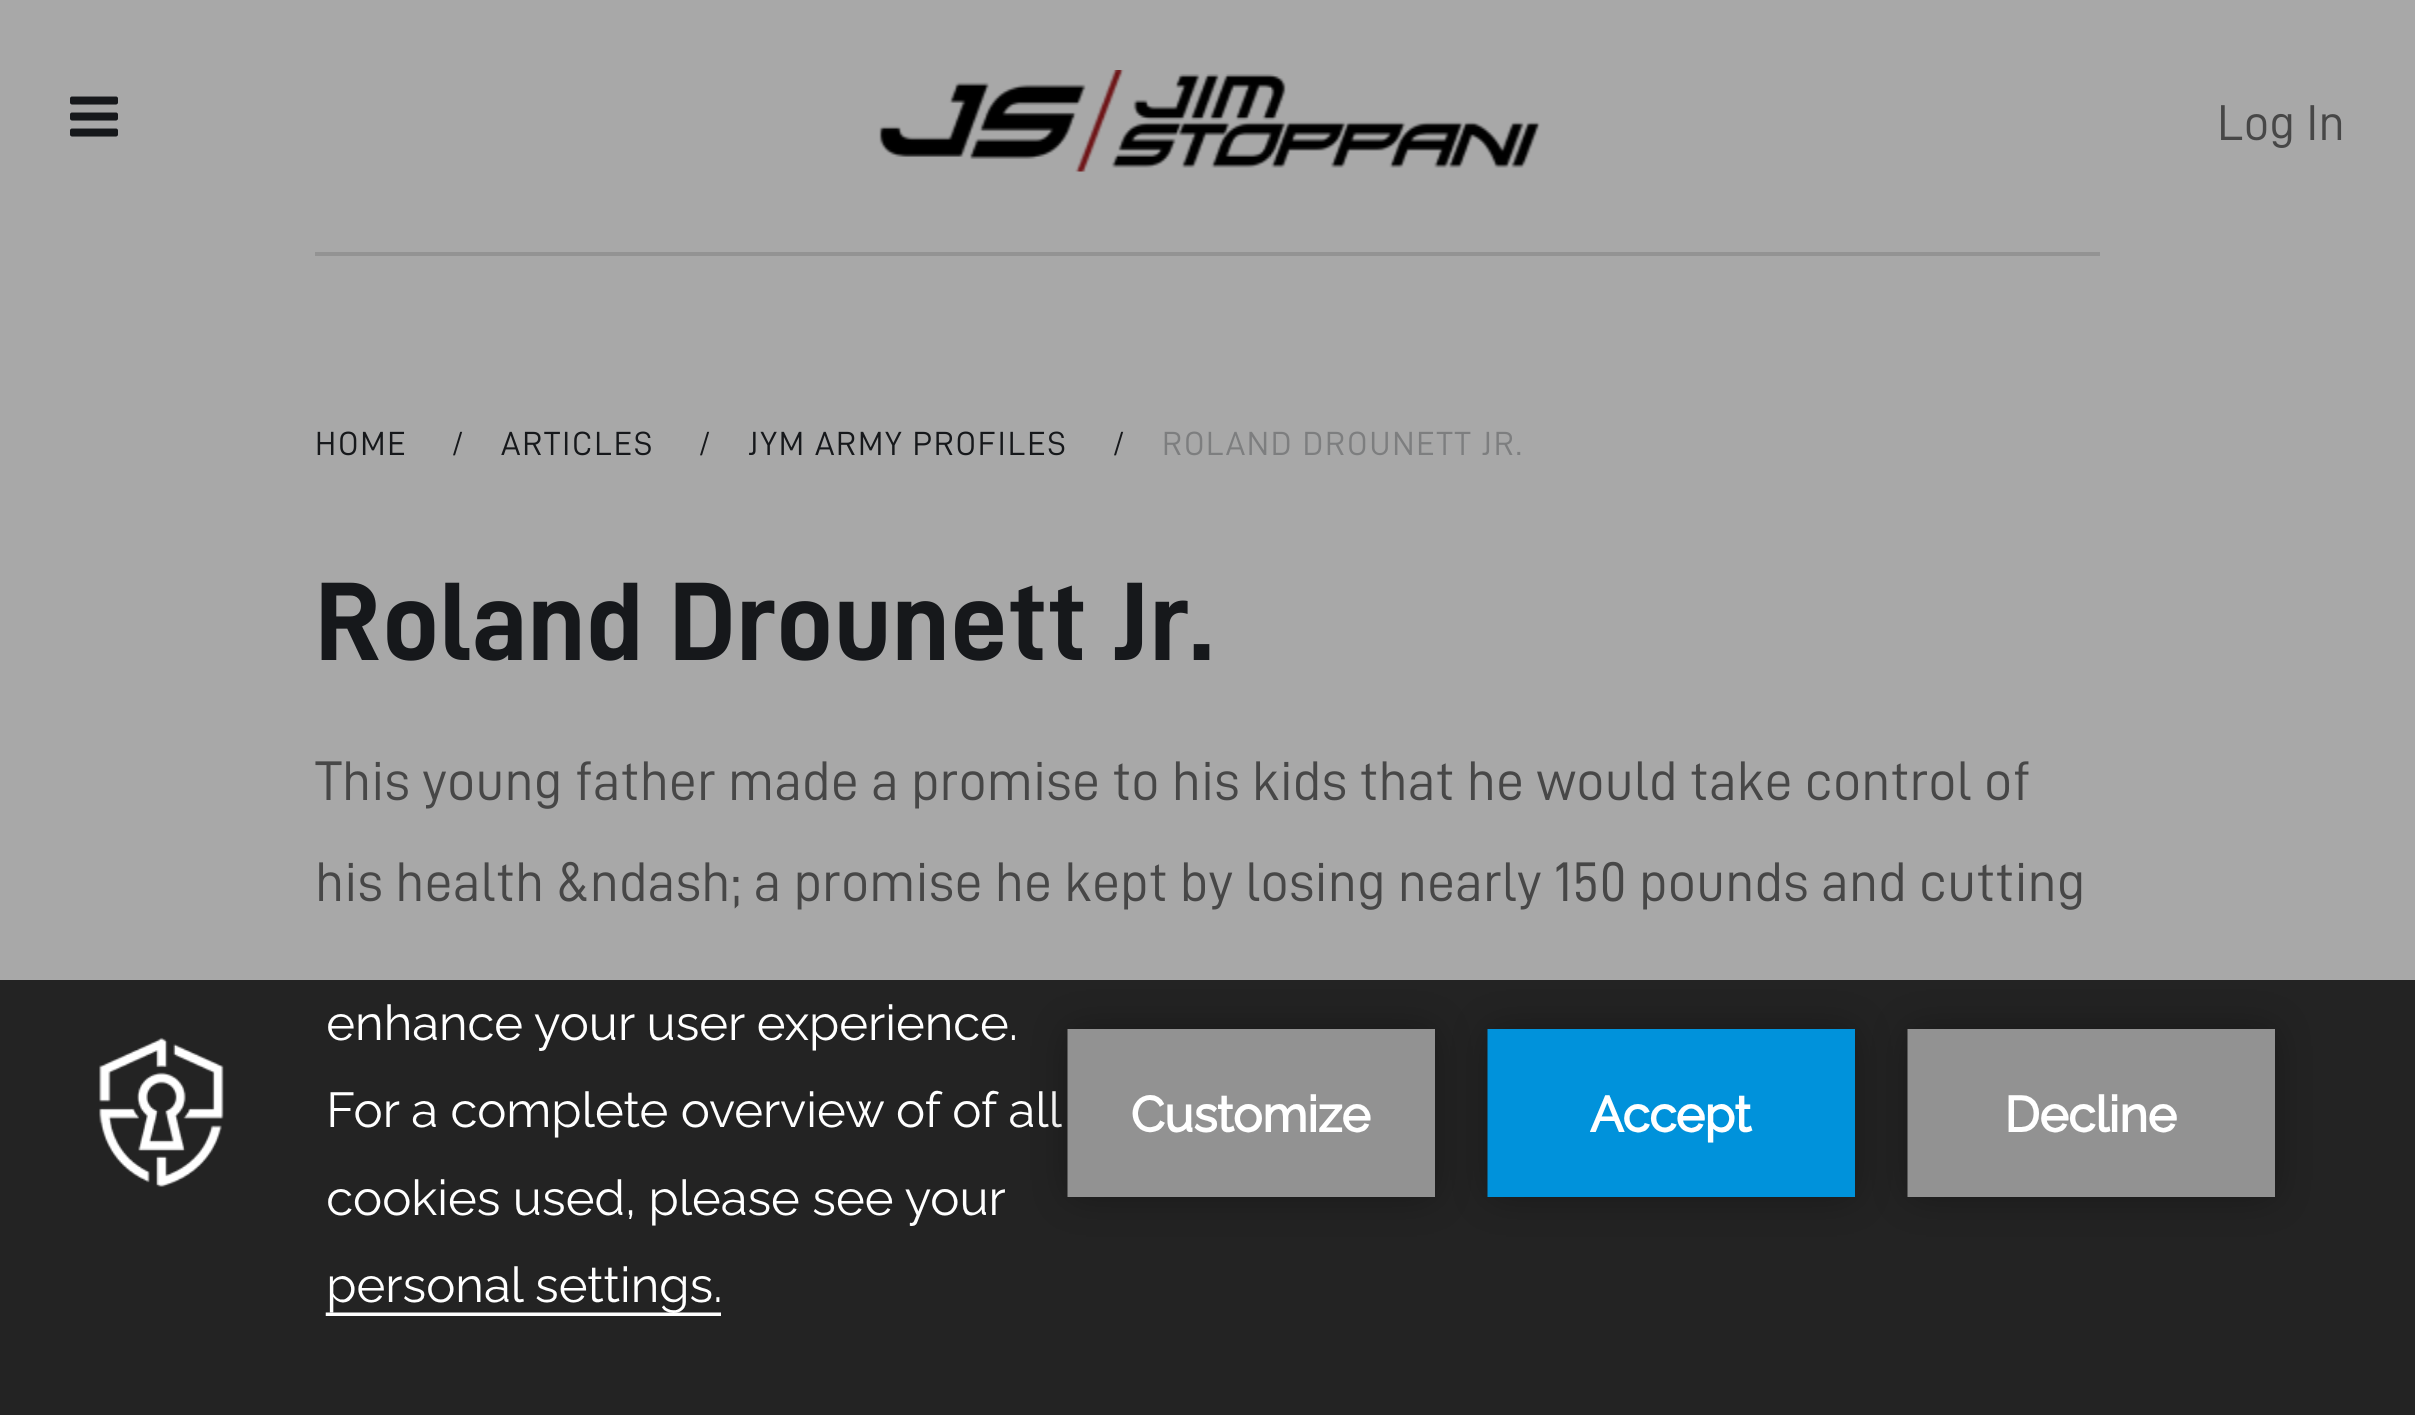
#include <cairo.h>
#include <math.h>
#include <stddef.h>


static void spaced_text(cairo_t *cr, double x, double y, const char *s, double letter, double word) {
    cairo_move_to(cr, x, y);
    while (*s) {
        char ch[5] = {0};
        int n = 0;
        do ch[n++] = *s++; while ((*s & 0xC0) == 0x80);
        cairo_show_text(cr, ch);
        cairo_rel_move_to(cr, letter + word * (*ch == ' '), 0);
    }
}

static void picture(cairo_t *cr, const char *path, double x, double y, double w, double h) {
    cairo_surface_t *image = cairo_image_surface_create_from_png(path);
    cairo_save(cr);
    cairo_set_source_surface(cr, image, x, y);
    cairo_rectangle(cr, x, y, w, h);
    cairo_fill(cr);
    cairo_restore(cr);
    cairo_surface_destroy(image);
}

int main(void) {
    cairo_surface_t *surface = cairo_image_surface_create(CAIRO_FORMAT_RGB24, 2415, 1415);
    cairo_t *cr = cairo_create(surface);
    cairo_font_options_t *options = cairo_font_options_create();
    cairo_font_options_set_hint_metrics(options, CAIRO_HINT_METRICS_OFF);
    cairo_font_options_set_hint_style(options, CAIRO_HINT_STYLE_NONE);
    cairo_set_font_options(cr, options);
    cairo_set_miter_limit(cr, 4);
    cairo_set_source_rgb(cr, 0.659, 0.659, 0.659);
    cairo_paint(cr);
    picture(cr, "img1.png", 70, 96, 48, 41);
    cairo_select_font_face(cr, "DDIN", CAIRO_FONT_SLANT_NORMAL, CAIRO_FONT_WEIGHT_NORMAL);
    cairo_set_font_size(cr, 50.5);
    cairo_set_source_rgb(cr, 0.278, 0.278, 0.278);
    cairo_move_to(cr, 2217, 140);
    cairo_show_text(cr, "Log In");
    cairo_set_source_rgb(cr, 0.576, 0.576, 0.576);
    cairo_rectangle(cr, 315, 252, 1785, 4);
    cairo_fill(cr);
    picture(cr, "img2.png", 879, 70, 661, 102);
    cairo_set_font_size(cr, 33.6);
    cairo_set_source_rgb(cr, 0.086, 0.094, 0.106);
    spaced_text(cr, 315, 455, "HOME", 1.75, 0);
    spaced_text(cr, 451, 455, "/", 1.75, 0);
    spaced_text(cr, 501, 455, "ARTICLES", 1.75, 0);
    spaced_text(cr, 698, 455, "/", 1.75, 0);
    spaced_text(cr, 748, 455, "JYM ARMY PROFILES", 1.75, 0);
    spaced_text(cr, 1112, 455, "/", 1.75, 0);
    cairo_set_source_rgb(cr, 0.49, 0.494, 0.498);
    spaced_text(cr, 1162, 455, "ROLAND DROUNETT JR.", 1.75, 0);
    cairo_select_font_face(cr, "DDIN", CAIRO_FONT_SLANT_NORMAL, CAIRO_FONT_WEIGHT_BOLD);
    cairo_set_font_size(cr, 112);
    cairo_set_source_rgb(cr, 0.086, 0.094, 0.106);
    cairo_move_to(cr, 315, 660);
    cairo_show_text(cr, "Roland Drounett Jr.");
    cairo_select_font_face(cr, "DDIN", CAIRO_FONT_SLANT_NORMAL, CAIRO_FONT_WEIGHT_NORMAL);
    cairo_set_font_size(cr, 56);
    cairo_set_source_rgb(cr, 0.278, 0.278, 0.278);
    cairo_move_to(cr, 315, 800);
    cairo_show_text(cr, "This young father made a promise to his kids that he would take control of");
    cairo_move_to(cr, 315, 901);
    cairo_show_text(cr, "his health &ndash; a promise he kept by losing nearly 150 pounds and cutting");
    picture(cr, "img3.png", 0, 980, 2415, 435);
    cairo_surface_write_to_png(surface, "page.png");
    cairo_font_options_destroy(options);
    cairo_destroy(cr);
    cairo_surface_destroy(surface);
    return 0;
}
